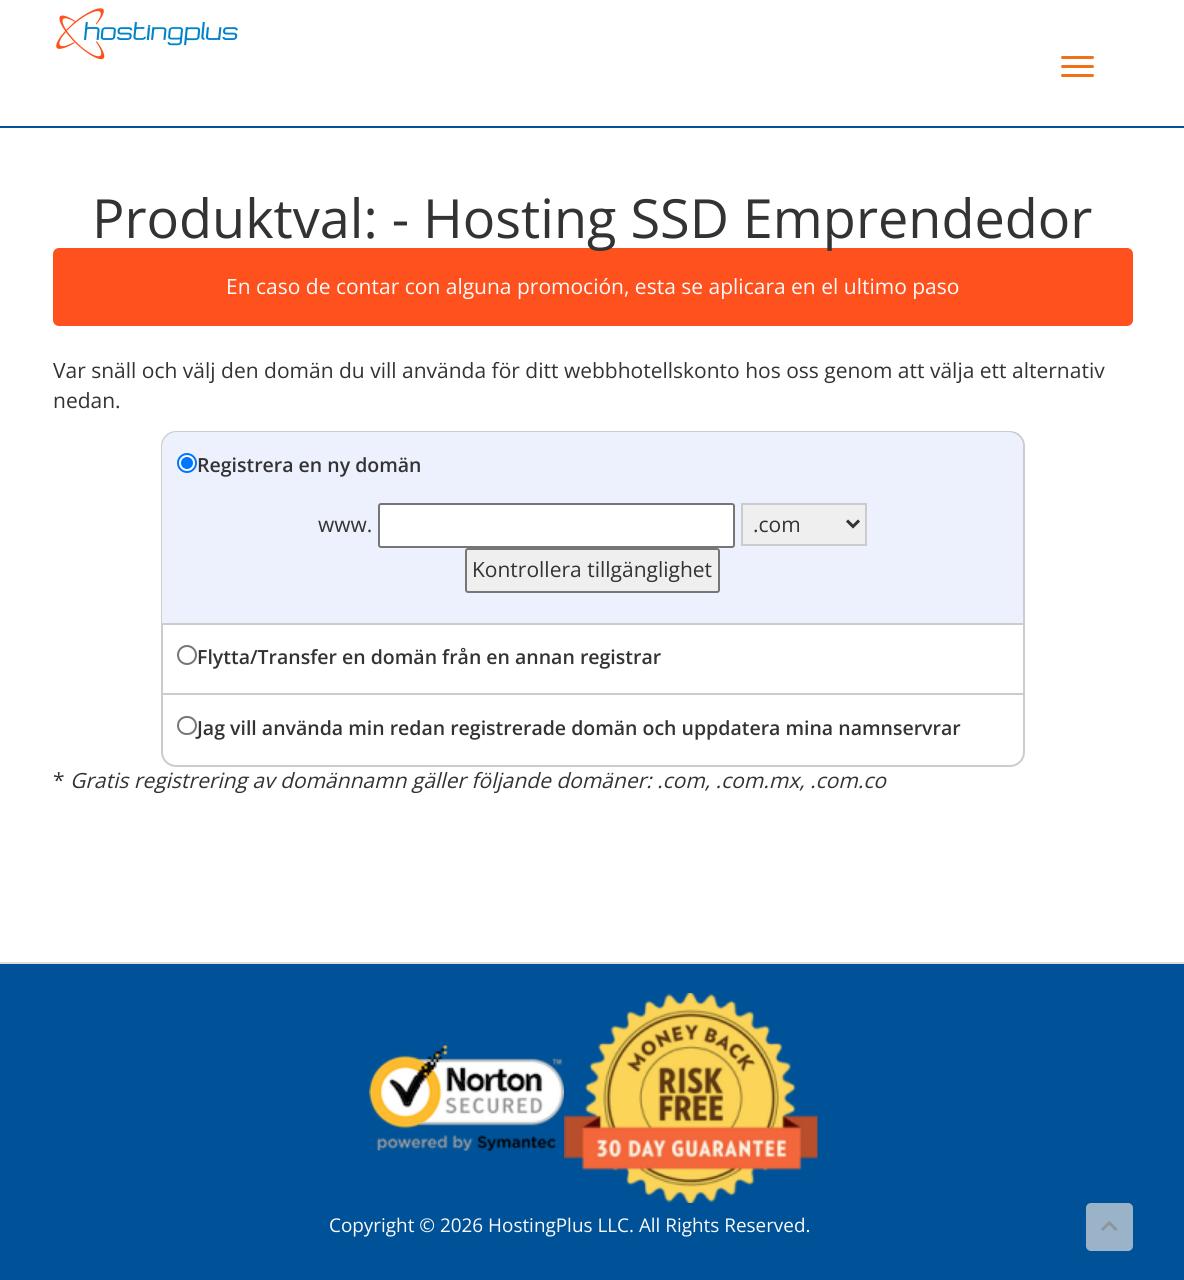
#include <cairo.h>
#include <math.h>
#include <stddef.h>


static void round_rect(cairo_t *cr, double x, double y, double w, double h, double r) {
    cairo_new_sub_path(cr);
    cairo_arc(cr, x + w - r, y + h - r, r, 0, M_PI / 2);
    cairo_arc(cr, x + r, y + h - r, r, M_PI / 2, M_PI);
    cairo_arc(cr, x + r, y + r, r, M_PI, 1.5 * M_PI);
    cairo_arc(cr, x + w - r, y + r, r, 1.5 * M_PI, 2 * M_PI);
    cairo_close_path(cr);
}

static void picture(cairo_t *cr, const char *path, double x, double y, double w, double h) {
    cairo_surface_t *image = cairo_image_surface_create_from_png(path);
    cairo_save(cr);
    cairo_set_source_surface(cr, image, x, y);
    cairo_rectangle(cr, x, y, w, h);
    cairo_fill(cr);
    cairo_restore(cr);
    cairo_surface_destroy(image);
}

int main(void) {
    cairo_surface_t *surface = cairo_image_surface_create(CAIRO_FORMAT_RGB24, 1184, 1280);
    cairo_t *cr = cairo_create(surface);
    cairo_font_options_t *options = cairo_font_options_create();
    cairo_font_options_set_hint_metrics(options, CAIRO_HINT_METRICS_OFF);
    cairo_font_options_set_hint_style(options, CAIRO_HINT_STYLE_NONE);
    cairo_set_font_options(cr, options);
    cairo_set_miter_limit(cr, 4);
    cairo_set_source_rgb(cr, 1, 1, 1);
    cairo_paint(cr);
    cairo_set_source_rgb(cr, 0, 0.322, 0.596);
    cairo_rectangle(cr, 0, 126, 1184, 2);
    cairo_fill(cr);
    picture(cr, "img1.png", 56, 8, 182, 52);
    cairo_set_source_rgb(cr, 0.941, 0.443, 0.094);
    round_rect(cr, 1061, 56, 33, 3, 1.5);
    cairo_fill(cr);
    round_rect(cr, 1061, 65, 33, 3, 1.5);
    cairo_fill(cr);
    round_rect(cr, 1061, 74, 33, 3, 1.5);
    cairo_fill(cr);
    cairo_set_source_rgb(cr, 1, 0.318, 0.114);
    round_rect(cr, 54, 249, 1078, 76, 5);
    cairo_fill_preserve(cr);
    cairo_stroke(cr);
    cairo_select_font_face(cr, "Open Sans", CAIRO_FONT_SLANT_NORMAL, CAIRO_FONT_WEIGHT_NORMAL);
    cairo_set_font_size(cr, 54);
    cairo_set_source_rgb(cr, 0.2, 0.2, 0.2);
    cairo_move_to(cr, 92, 238);
    cairo_show_text(cr, "Produktval: - Hosting SSD Emprendedor");
    cairo_set_font_size(cr, 21);
    cairo_set_source_rgb(cr, 0.98, 0.98, 0.98);
    cairo_move_to(cr, 226, 294);
    cairo_show_text(cr, "En caso de contar con alguna promoción, esta se aplicara en el ultimo paso");
    cairo_set_source_rgb(cr, 0.2, 0.2, 0.2);
    cairo_move_to(cr, 53, 378);
    cairo_show_text(cr, "Var snäll och välj den domän du vill använda för ditt webbhotellskonto hos oss genom att välja ett alternativ");
    cairo_move_to(cr, 53, 408);
    cairo_show_text(cr, "nedan.");
    round_rect(cr, 162, 432, 862, 334, 14);
    cairo_set_source_rgb(cr, 0.8, 0.8, 0.8);
    cairo_stroke(cr);
    cairo_set_source_rgb(cr, 0.929, 0.945, 0.996);
    cairo_new_path(cr);
    cairo_move_to(cr, 177, 432);
    cairo_line_to(cr, 1008, 432);
    cairo_curve_to(cr, 1016.5, 432, 1023, 438.5, 1023, 447);
    cairo_line_to(cr, 1023, 624);
    cairo_line_to(cr, 162, 624);
    cairo_line_to(cr, 162, 447);
    cairo_curve_to(cr, 162, 438.5, 168.5, 432, 177, 432);
    cairo_close_path(cr);
    cairo_fill(cr);
    cairo_set_source_rgb(cr, 0.8, 0.8, 0.8);
    cairo_rectangle(cr, 162, 623, 861, 2);
    cairo_fill(cr);
    cairo_set_source_rgb(cr, 1, 1, 1);
    cairo_arc(cr, 187, 463, 9, 0, 2 * M_PI);
    cairo_fill_preserve(cr);
    cairo_set_source_rgb(cr, 0, 0.459, 1);
    cairo_stroke(cr);
    cairo_arc(cr, 187, 463, 6, 0, 2 * M_PI);
    cairo_fill(cr);
    cairo_select_font_face(cr, "Open Sans SemiBold", CAIRO_FONT_SLANT_NORMAL, CAIRO_FONT_WEIGHT_NORMAL);
    cairo_set_font_size(cr, 19.5);
    cairo_set_source_rgb(cr, 0.2, 0.2, 0.2);
    cairo_move_to(cr, 197, 472);
    cairo_show_text(cr, "Registrera en ny domän");
    cairo_select_font_face(cr, "Open Sans", CAIRO_FONT_SLANT_NORMAL, CAIRO_FONT_WEIGHT_NORMAL);
    cairo_set_font_size(cr, 21);
    cairo_move_to(cr, 318, 532);
    cairo_show_text(cr, "www.");
    cairo_set_source_rgb(cr, 1, 1, 1);
    round_rect(cr, 379, 504, 355, 43, 2);
    cairo_fill_preserve(cr);
    cairo_set_source_rgb(cr, 0.463, 0.463, 0.463);
    cairo_stroke(cr);
    cairo_set_source_rgb(cr, 0.937, 0.937, 0.937);
    cairo_rectangle(cr, 742, 504, 124, 41);
    cairo_fill_preserve(cr);
    cairo_set_source_rgb(cr, 0.8, 0.8, 0.8);
    cairo_stroke(cr);
    cairo_new_path(cr);
    cairo_move_to(cr, 847, 520.5);
    cairo_line_to(cr, 853, 526.5);
    cairo_line_to(cr, 859, 520.5);
    cairo_set_source_rgb(cr, 0.2, 0.2, 0.2);
    cairo_set_line_width(cr, 3);
    cairo_stroke(cr);
    cairo_move_to(cr, 753, 532);
    cairo_show_text(cr, ".com");
    cairo_set_source_rgb(cr, 0.937, 0.937, 0.937);
    round_rect(cr, 466, 549, 253, 43, 2);
    cairo_fill_preserve(cr);
    cairo_set_source_rgb(cr, 0.463, 0.463, 0.463);
    cairo_set_line_width(cr, 2);
    cairo_stroke(cr);
    cairo_set_source_rgb(cr, 0.2, 0.2, 0.2);
    cairo_move_to(cr, 472, 577);
    cairo_show_text(cr, "Kontrollera tillgänglighet");
    cairo_set_source_rgb(cr, 0.8, 0.8, 0.8);
    cairo_rectangle(cr, 162, 693, 861, 2);
    cairo_fill(cr);
    cairo_arc(cr, 187, 655, 9, 0, 2 * M_PI);
    cairo_set_source_rgb(cr, 0.463, 0.463, 0.463);
    cairo_stroke(cr);
    cairo_select_font_face(cr, "Open Sans SemiBold", CAIRO_FONT_SLANT_NORMAL, CAIRO_FONT_WEIGHT_NORMAL);
    cairo_set_font_size(cr, 19.5);
    cairo_set_source_rgb(cr, 0.2, 0.2, 0.2);
    cairo_move_to(cr, 197, 664);
    cairo_show_text(cr, "Flytta/Transfer en domän från en annan registrar");
    round_rect(cr, 178, 717, 18, 17, 8.5);
    cairo_set_source_rgb(cr, 0.463, 0.463, 0.463);
    cairo_stroke(cr);
    cairo_set_source_rgb(cr, 0.2, 0.2, 0.2);
    cairo_move_to(cr, 197, 735);
    cairo_show_text(cr, "Jag vill använda min redan registrerade domän och uppdatera mina namnservrar");
    cairo_select_font_face(cr, "Open Sans", CAIRO_FONT_SLANT_NORMAL, CAIRO_FONT_WEIGHT_NORMAL);
    cairo_set_font_size(cr, 21);
    cairo_move_to(cr, 53, 788);
    cairo_show_text(cr, "*");
    cairo_select_font_face(cr, "Open Sans", CAIRO_FONT_SLANT_ITALIC, CAIRO_FONT_WEIGHT_NORMAL);
    cairo_move_to(cr, 70, 788);
    cairo_show_text(cr, "Gratis registrering av domännamn gäller följande domäner: .com, .com.mx, .com.co");
    cairo_set_source_rgb(cr, 0, 0.322, 0.596);
    cairo_rectangle(cr, 0, 964, 1184, 316);
    cairo_fill(cr);
    cairo_set_source_rgb(cr, 0.867, 0.867, 0.867);
    cairo_rectangle(cr, 0, 962, 1184, 2);
    cairo_fill(cr);
    picture(cr, "img2.png", 369, 1045, 195, 106);
    picture(cr, "img3.png", 564, 993, 254, 210);
    cairo_select_font_face(cr, "Open Sans", CAIRO_FONT_SLANT_NORMAL, CAIRO_FONT_WEIGHT_NORMAL);
    cairo_set_font_size(cr, 18.9);
    cairo_set_source_rgb(cr, 0.98, 0.98, 0.98);
    cairo_move_to(cr, 329, 1232);
    cairo_show_text(cr, "Copyright © 2026 HostingPlus LLC. All Rights Reserved.");
    cairo_set_source_rgb(cr, 0.608, 0.702, 0.784);
    round_rect(cr, 1086, 1203, 47, 48, 5);
    cairo_fill(cr);
    picture(cr, "img4.png", 1101, 1221, 17, 10);
    cairo_surface_write_to_png(surface, "page.png");
    cairo_font_options_destroy(options);
    cairo_destroy(cr);
    cairo_surface_destroy(surface);
    return 0;
}
